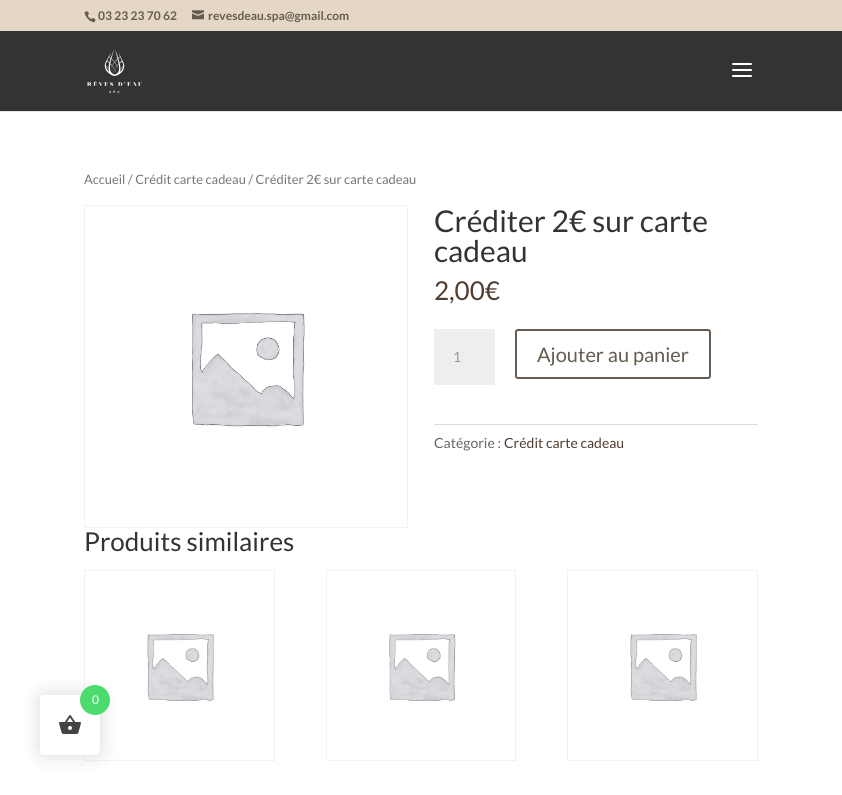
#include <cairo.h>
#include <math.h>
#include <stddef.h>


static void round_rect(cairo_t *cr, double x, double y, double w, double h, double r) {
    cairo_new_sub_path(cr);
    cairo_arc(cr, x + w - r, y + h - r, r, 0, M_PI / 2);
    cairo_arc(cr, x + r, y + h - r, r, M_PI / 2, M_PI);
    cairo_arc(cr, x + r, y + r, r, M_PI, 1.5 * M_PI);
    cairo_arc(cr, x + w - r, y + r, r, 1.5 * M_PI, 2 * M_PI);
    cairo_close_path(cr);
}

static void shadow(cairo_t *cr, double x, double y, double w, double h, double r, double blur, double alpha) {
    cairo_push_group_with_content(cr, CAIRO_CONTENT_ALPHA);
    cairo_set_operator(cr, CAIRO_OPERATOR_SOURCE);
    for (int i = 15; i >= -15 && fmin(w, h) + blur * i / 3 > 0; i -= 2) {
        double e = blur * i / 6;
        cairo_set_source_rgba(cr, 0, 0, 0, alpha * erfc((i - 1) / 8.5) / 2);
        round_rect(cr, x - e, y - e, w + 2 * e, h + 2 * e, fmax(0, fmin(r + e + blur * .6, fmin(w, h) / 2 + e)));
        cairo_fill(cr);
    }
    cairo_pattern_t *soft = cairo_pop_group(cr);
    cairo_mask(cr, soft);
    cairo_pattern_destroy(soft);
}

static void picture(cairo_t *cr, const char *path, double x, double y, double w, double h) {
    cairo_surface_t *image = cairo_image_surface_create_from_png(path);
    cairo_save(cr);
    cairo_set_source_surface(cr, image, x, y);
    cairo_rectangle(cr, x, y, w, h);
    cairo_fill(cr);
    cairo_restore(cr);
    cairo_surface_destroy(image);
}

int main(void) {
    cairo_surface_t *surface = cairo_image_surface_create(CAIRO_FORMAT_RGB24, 842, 795);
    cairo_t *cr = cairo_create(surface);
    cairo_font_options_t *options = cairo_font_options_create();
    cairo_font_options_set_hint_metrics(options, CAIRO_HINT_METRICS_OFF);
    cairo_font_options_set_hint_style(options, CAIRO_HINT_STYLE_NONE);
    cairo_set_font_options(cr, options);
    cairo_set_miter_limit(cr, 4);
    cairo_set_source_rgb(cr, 1, 1, 1);
    cairo_paint(cr);
    cairo_set_source_rgb(cr, 0.898, 0.843, 0.776);
    cairo_rectangle(cr, 0, 0, 842, 31);
    cairo_fill(cr);
    picture(cr, "img1.png", 84, 11, 12, 12);
    cairo_select_font_face(cr, "Lato", CAIRO_FONT_SLANT_NORMAL, CAIRO_FONT_WEIGHT_BOLD);
    cairo_set_font_size(cr, 12);
    cairo_set_source_rgb(cr, 0.4, 0.357, 0.306);
    cairo_move_to(cr, 98, 20);
    cairo_show_text(cr, "03 23 23 70 62");
    picture(cr, "img2.png", 192, 10, 12, 10);
    cairo_move_to(cr, 208, 20);
    cairo_show_text(cr, "revesdeau.spa@gmail.com");
    cairo_set_source_rgb(cr, 0.902, 0.902, 0.902);
    cairo_rectangle(cr, 0, 111, 842, 1);
    cairo_fill(cr);
    cairo_set_source_rgb(cr, 0.2, 0.2, 0.2);
    cairo_rectangle(cr, 0, 31, 842, 80);
    cairo_fill(cr);
    picture(cr, "img3.png", 87, 49, 55, 44);
    picture(cr, "img4.png", 732, 63, 20, 14);
    cairo_select_font_face(cr, "Lato", CAIRO_FONT_SLANT_NORMAL, CAIRO_FONT_WEIGHT_NORMAL);
    cairo_set_font_size(cr, 12.9);
    cairo_set_source_rgb(cr, 0.463, 0.463, 0.463);
    cairo_move_to(cr, 84, 184);
    cairo_show_text(cr, "Accueil / Crédit carte cadeau / Créditer 2€ sur carte cadeau");
    cairo_rectangle(cr, 84.5, 205.5, 323, 322);
    cairo_set_source_rgb(cr, 0.949, 0.949, 0.949);
    cairo_set_line_width(cr, 1);
    cairo_stroke(cr);
    picture(cr, "img5.png", 191, 313, 114, 114);
    cairo_set_font_size(cr, 30);
    cairo_set_source_rgb(cr, 0.2, 0.2, 0.2);
    cairo_move_to(cr, 434, 232);
    cairo_show_text(cr, "Créditer 2€ sur carte");
    cairo_move_to(cr, 434, 262);
    cairo_show_text(cr, "cadeau");
    cairo_set_font_size(cr, 26);
    cairo_set_source_rgb(cr, 0.322, 0.235, 0.184);
    cairo_move_to(cr, 434, 300);
    cairo_show_text(cr, "2,00€");
    cairo_set_source_rgb(cr, 0.933, 0.933, 0.933);
    cairo_rectangle(cr, 434, 329, 61, 56);
    cairo_fill(cr);
    cairo_set_font_size(cr, 14);
    cairo_set_source_rgb(cr, 0.6, 0.6, 0.6);
    cairo_move_to(cr, 453, 362);
    cairo_show_text(cr, "1");
    round_rect(cr, 516, 330, 194, 48, 2);
    cairo_set_source_rgb(cr, 0.4, 0.357, 0.306);
    cairo_set_line_width(cr, 2);
    cairo_stroke(cr);
    cairo_set_font_size(cr, 20);
    cairo_move_to(cr, 537, 362);
    cairo_show_text(cr, "Ajouter au panier");
    cairo_set_source_rgb(cr, 0.855, 0.855, 0.855);
    cairo_rectangle(cr, 434, 424, 324, 1);
    cairo_fill(cr);
    cairo_set_font_size(cr, 14);
    cairo_set_source_rgb(cr, 0.4, 0.4, 0.4);
    cairo_move_to(cr, 434, 448);
    cairo_show_text(cr, "Catégorie :");
    cairo_set_source_rgb(cr, 0.322, 0.235, 0.184);
    cairo_move_to(cr, 504, 448);
    cairo_show_text(cr, "Crédit carte cadeau");
    cairo_set_font_size(cr, 26);
    cairo_set_source_rgb(cr, 0.2, 0.2, 0.2);
    cairo_move_to(cr, 84, 551);
    cairo_show_text(cr, "Produits similaires");
    cairo_rectangle(cr, 84.5, 570.5, 190, 190);
    cairo_set_source_rgb(cr, 0.949, 0.949, 0.949);
    cairo_set_line_width(cr, 1);
    cairo_stroke(cr);
    picture(cr, "img6.png", 147, 634, 67, 67);
    cairo_rectangle(cr, 326.5, 570.5, 189, 190);
    cairo_stroke(cr);
    picture(cr, "img7.png", 389, 634, 67, 67);
    cairo_rectangle(cr, 567.5, 570.5, 190, 190);
    cairo_stroke(cr);
    picture(cr, "img8.png", 630, 634, 67, 67);
    cairo_set_source_rgb(cr, 0, 0, 0);
    shadow(cr, 40, 695, 60, 60, 4, 10, 0.15);
    cairo_set_source_rgb(cr, 1, 1, 1);
    round_rect(cr, 40, 695, 60, 60, 4);
    cairo_fill(cr);
    cairo_set_source_rgb(cr, 0.298, 0.859, 0.431);
    cairo_arc(cr, 95, 700, 15, 0, 2 * M_PI);
    cairo_fill(cr);
    cairo_set_font_size(cr, 12);
    cairo_set_source_rgb(cr, 1, 1, 1);
    cairo_move_to(cr, 92, 704);
    cairo_show_text(cr, "0");
    picture(cr, "img9.png", 59, 715, 22, 19);
    cairo_surface_write_to_png(surface, "page.png");
    cairo_font_options_destroy(options);
    cairo_destroy(cr);
    cairo_surface_destroy(surface);
    return 0;
}
